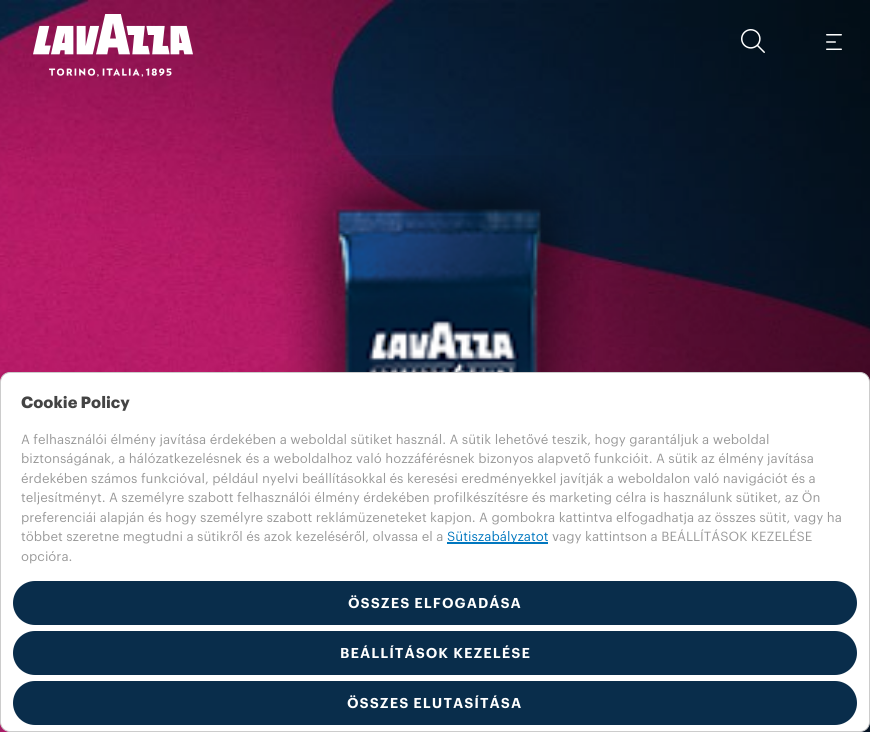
#include <cairo.h>
#include <math.h>
#include <stddef.h>


static void spaced_text(cairo_t *cr, double x, double y, const char *s, double letter, double word) {
    cairo_move_to(cr, x, y);
    while (*s) {
        char ch[5] = {0};
        int n = 0;
        do ch[n++] = *s++; while ((*s & 0xC0) == 0x80);
        cairo_show_text(cr, ch);
        cairo_rel_move_to(cr, letter + word * (*ch == ' '), 0);
    }
}

static void round_rect(cairo_t *cr, double x, double y, double w, double h, double r) {
    cairo_new_sub_path(cr);
    cairo_arc(cr, x + w - r, y + h - r, r, 0, M_PI / 2);
    cairo_arc(cr, x + r, y + h - r, r, M_PI / 2, M_PI);
    cairo_arc(cr, x + r, y + r, r, M_PI, 1.5 * M_PI);
    cairo_arc(cr, x + w - r, y + r, r, 1.5 * M_PI, 2 * M_PI);
    cairo_close_path(cr);
}

static void picture(cairo_t *cr, const char *path, double x, double y, double w, double h) {
    cairo_surface_t *image = cairo_image_surface_create_from_png(path);
    cairo_save(cr);
    cairo_set_source_surface(cr, image, x, y);
    cairo_rectangle(cr, x, y, w, h);
    cairo_fill(cr);
    cairo_restore(cr);
    cairo_surface_destroy(image);
}

int main(void) {
    cairo_surface_t *surface = cairo_image_surface_create(CAIRO_FORMAT_RGB24, 870, 732);
    cairo_t *cr = cairo_create(surface);
    cairo_font_options_t *options = cairo_font_options_create();
    cairo_font_options_set_hint_metrics(options, CAIRO_HINT_METRICS_OFF);
    cairo_font_options_set_hint_style(options, CAIRO_HINT_STYLE_NONE);
    cairo_set_font_options(cr, options);
    cairo_set_miter_limit(cr, 4);
    cairo_set_source_rgb(cr, 1, 1, 1);
    cairo_paint(cr);
    picture(cr, "img1.png", 0, 0, 870, 732);
    picture(cr, "img2.png", 284, 155, 308, 217);
    picture(cr, "img3.png", 33, 14, 160, 63);
    picture(cr, "img4.png", 741, 29, 24, 24);
    picture(cr, "img5.png", 826, 34, 16, 16);
    cairo_set_source_rgb(cr, 1, 1, 1);
    round_rect(cr, 0.5, 372.5, 869, 359, 9.5);
    cairo_fill_preserve(cr);
    cairo_set_source_rgb(cr, 0.8, 0.8, 0.8);
    cairo_set_line_width(cr, 1);
    cairo_stroke(cr);
    cairo_select_font_face(cr, "Graphik", CAIRO_FONT_SLANT_NORMAL, CAIRO_FONT_WEIGHT_BOLD);
    cairo_set_font_size(cr, 16);
    cairo_set_source_rgb(cr, 0.267, 0.267, 0.267);
    cairo_move_to(cr, 21, 408);
    cairo_show_text(cr, "Cookie Policy");
    cairo_select_font_face(cr, "Graphik", CAIRO_FONT_SLANT_NORMAL, CAIRO_FONT_WEIGHT_NORMAL);
    cairo_set_font_size(cr, 13);
    cairo_set_source_rgb(cr, 0.6, 0.6, 0.6);
    cairo_move_to(cr, 21, 444);
    cairo_show_text(cr, "A felhasználói élmény javítása érdekében a weboldal sütiket használ. A sütik lehetővé teszik, hogy garantáljuk a weboldal");
    cairo_move_to(cr, 21, 463);
    cairo_show_text(cr, "biztonságának, a hálózatkezelésnek és a weboldalhoz való hozzáférésnek bizonyos alapvető funkcióit. A sütik az élmény javítása");
    cairo_move_to(cr, 21, 483);
    cairo_show_text(cr, "érdekében számos funkcióval, például nyelvi beállításokkal és keresési eredményekkel javítják a weboldalon való navigációt és a");
    cairo_move_to(cr, 21, 502);
    cairo_show_text(cr, "teljesítményt. A személyre szabott felhasználói élmény érdekében profilkészítésre és marketing célra is használunk sütiket, az Ön");
    cairo_move_to(cr, 21, 522);
    cairo_show_text(cr, "preferenciái alapján és hogy személyre szabott reklámüzeneteket kapjon. A gombokra kattintva elfogadhatja az összes sütit, vagy ha");
    cairo_move_to(cr, 21, 541);
    cairo_show_text(cr, "többet szeretne megtudni a sütikről és azok kezeléséről, olvassa el a");
    cairo_set_source_rgb(cr, 0, 0.467, 0.749);
    cairo_rectangle(cr, 447, 542, 101, 2);
    cairo_fill(cr);
    cairo_move_to(cr, 447, 541);
    cairo_show_text(cr, "Sütiszabályzatot");
    cairo_set_source_rgb(cr, 0.6, 0.6, 0.6);
    cairo_move_to(cr, 552, 541);
    cairo_show_text(cr, "vagy kattintson a BEÁLLÍTÁSOK KEZELÉSE");
    cairo_move_to(cr, 21, 561);
    cairo_show_text(cr, "opcióra.");
    cairo_set_source_rgb(cr, 0.039, 0.176, 0.294);
    round_rect(cr, 13, 581, 844, 44, 22);
    cairo_fill(cr);
    cairo_select_font_face(cr, "Graphik SemiBold", CAIRO_FONT_SLANT_NORMAL, CAIRO_FONT_WEIGHT_NORMAL);
    cairo_set_font_size(cr, 14);
    cairo_set_source_rgb(cr, 1, 1, 1);
    spaced_text(cr, 348, 608, "ÖSSZES ELFOGADÁSA", 1, 0);
    cairo_set_source_rgb(cr, 0.039, 0.176, 0.294);
    round_rect(cr, 13, 631, 844, 44, 22);
    cairo_fill(cr);
    cairo_set_source_rgb(cr, 1, 1, 1);
    spaced_text(cr, 340, 658, "BEÁLLÍTÁSOK KEZELÉSE", 1, 0);
    cairo_set_source_rgb(cr, 0.039, 0.176, 0.294);
    round_rect(cr, 13, 681, 844, 44, 22);
    cairo_fill(cr);
    cairo_set_source_rgb(cr, 1, 1, 1);
    spaced_text(cr, 347, 708, "ÖSSZES ELUTASÍTÁSA", 1, 0);
    cairo_surface_write_to_png(surface, "page.png");
    cairo_font_options_destroy(options);
    cairo_destroy(cr);
    cairo_surface_destroy(surface);
    return 0;
}
